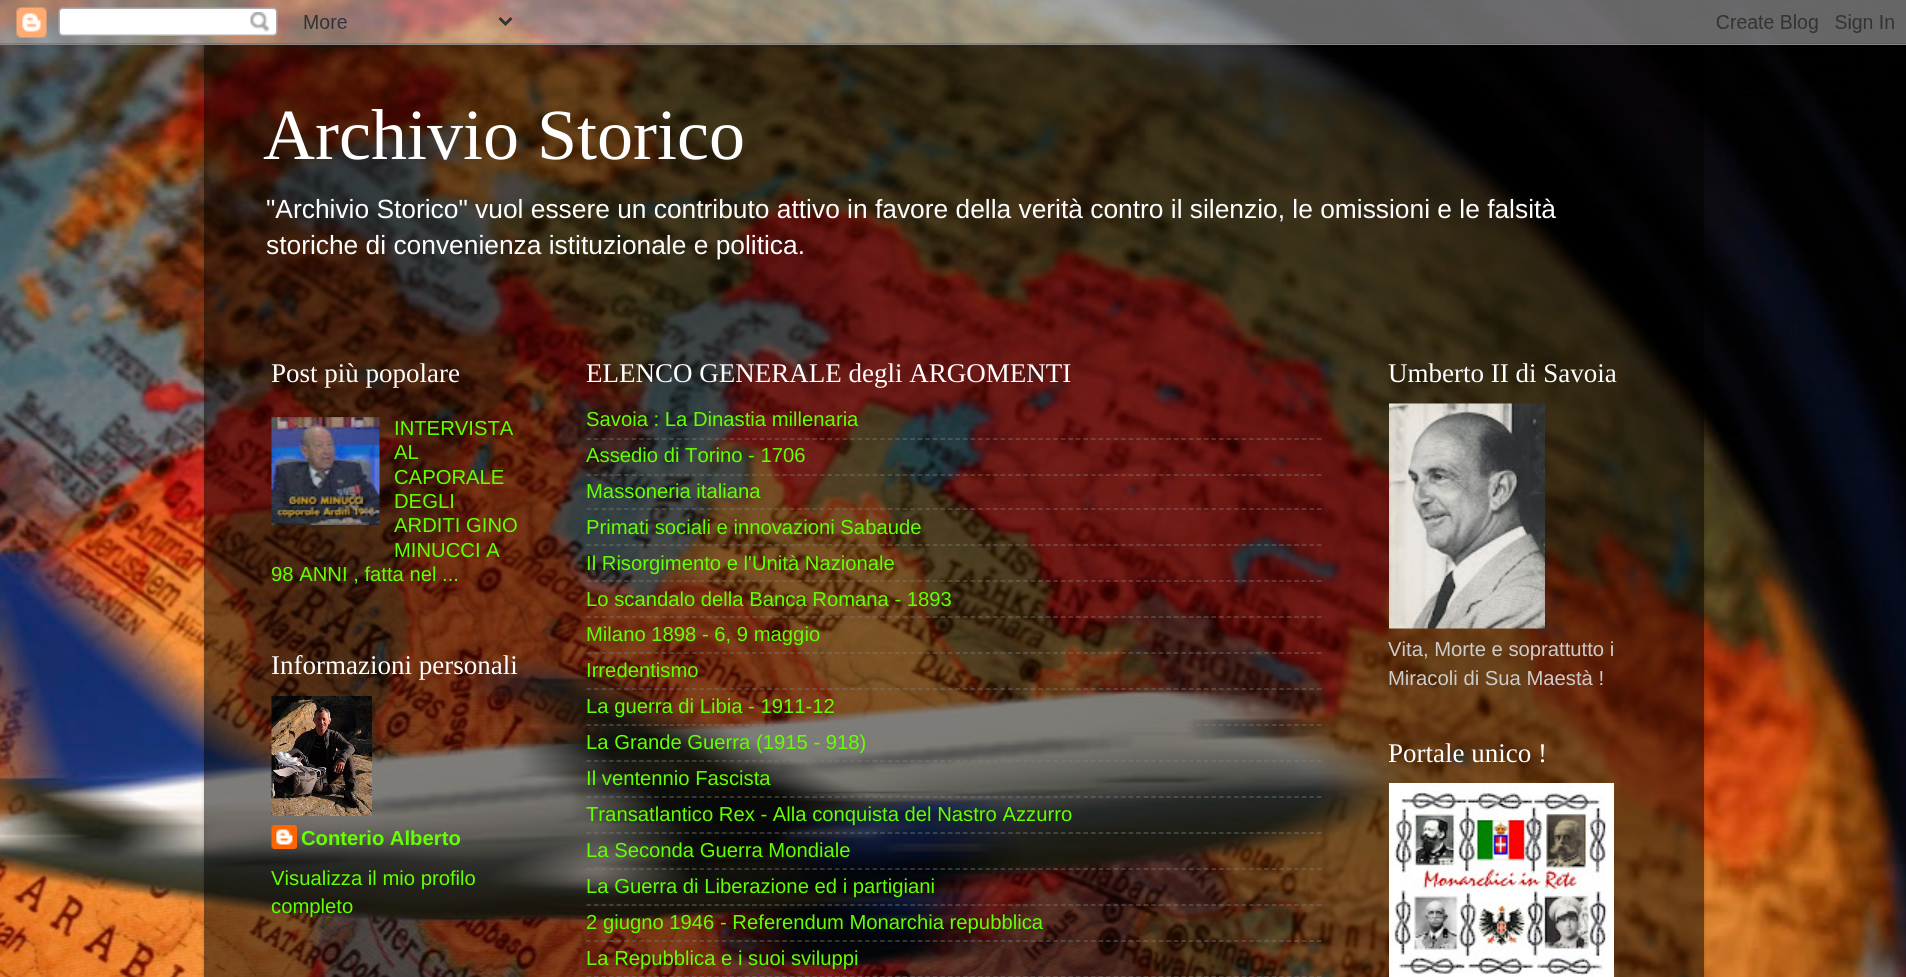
#include <cairo.h>
#include <math.h>
#include <stddef.h>


static void round_rect(cairo_t *cr, double x, double y, double w, double h, double r) {
    cairo_new_sub_path(cr);
    cairo_arc(cr, x + w - r, y + h - r, r, 0, M_PI / 2);
    cairo_arc(cr, x + r, y + h - r, r, M_PI / 2, M_PI);
    cairo_arc(cr, x + r, y + r, r, M_PI, 1.5 * M_PI);
    cairo_arc(cr, x + w - r, y + r, r, 1.5 * M_PI, 2 * M_PI);
    cairo_close_path(cr);
}

static void shadow(cairo_t *cr, double x, double y, double w, double h, double r, double blur, double alpha) {
    cairo_push_group_with_content(cr, CAIRO_CONTENT_ALPHA);
    cairo_set_operator(cr, CAIRO_OPERATOR_SOURCE);
    for (int i = 15; i >= -15 && fmin(w, h) + blur * i / 3 > 0; i -= 2) {
        double e = blur * i / 6;
        cairo_set_source_rgba(cr, 0, 0, 0, alpha * erfc((i - 1) / 8.5) / 2);
        round_rect(cr, x - e, y - e, w + 2 * e, h + 2 * e, fmax(0, fmin(r + e + blur * .6, fmin(w, h) / 2 + e)));
        cairo_fill(cr);
    }
    cairo_pattern_t *soft = cairo_pop_group(cr);
    cairo_mask(cr, soft);
    cairo_pattern_destroy(soft);
}

static void picture(cairo_t *cr, const char *path, double x, double y, double w, double h) {
    cairo_surface_t *image = cairo_image_surface_create_from_png(path);
    cairo_save(cr);
    cairo_set_source_surface(cr, image, x, y);
    cairo_rectangle(cr, x, y, w, h);
    cairo_fill(cr);
    cairo_restore(cr);
    cairo_surface_destroy(image);
}

int main(void) {
    cairo_surface_t *surface = cairo_image_surface_create(CAIRO_FORMAT_RGB24, 1906, 977);
    cairo_t *cr = cairo_create(surface);
    cairo_font_options_t *options = cairo_font_options_create();
    cairo_font_options_set_hint_metrics(options, CAIRO_HINT_METRICS_OFF);
    cairo_font_options_set_hint_style(options, CAIRO_HINT_STYLE_NONE);
    cairo_set_font_options(cr, options);
    cairo_set_miter_limit(cr, 4);
    cairo_set_source_rgb(cr, 1, 1, 1);
    cairo_paint(cr);
    picture(cr, "img1.png", 0, 0, 1906, 977);
    cairo_save(cr);
    cairo_set_fill_rule(cr, CAIRO_FILL_RULE_EVEN_ODD);
    cairo_new_path(cr);
    cairo_move_to(cr, 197, 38);
    cairo_line_to(cr, 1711, 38);
    cairo_line_to(cr, 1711, 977);
    cairo_line_to(cr, 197, 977);
    cairo_close_path(cr);
    cairo_move_to(cr, 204, 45);
    cairo_line_to(cr, 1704, 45);
    cairo_line_to(cr, 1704, 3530);
    cairo_line_to(cr, 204, 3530);
    cairo_close_path(cr);
    cairo_clip(cr);
    cairo_set_source_rgb(cr, 0, 0, 0);
    shadow(cr, 204, 45, 1500, 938, 0, 2, 0.15);
    cairo_restore(cr);
    picture(cr, "img2.png", 0, 0, 1906, 45);
    cairo_set_source_rgba(cr, 0, 0, 0, 0.5);
    cairo_rectangle(cr, 204, 45, 1500, 932);
    cairo_fill(cr);
    cairo_select_font_face(cr, "Liberation Serif", CAIRO_FONT_SLANT_NORMAL, CAIRO_FONT_WEIGHT_NORMAL);
    cairo_set_font_size(cr, 72);
    cairo_set_source_rgb(cr, 1, 1, 1);
    cairo_move_to(cr, 263, 159);
    cairo_show_text(cr, "Archivio Storico");
    cairo_select_font_face(cr, "Liberation Sans", CAIRO_FONT_SLANT_NORMAL, CAIRO_FONT_WEIGHT_NORMAL);
    cairo_set_font_size(cr, 26.35);
    cairo_move_to(cr, 266, 218);
    cairo_show_text(cr, "\"Archivio Storico\" vuol essere un contributo attivo in favore della verità contro il silenzio, le omissioni e le falsità");
    cairo_move_to(cr, 266, 254);
    cairo_show_text(cr, "storiche di convenienza istituzionale e politica.");
    cairo_select_font_face(cr, "Liberation Serif", CAIRO_FONT_SLANT_NORMAL, CAIRO_FONT_WEIGHT_NORMAL);
    cairo_set_font_size(cr, 27);
    cairo_move_to(cr, 271, 382);
    cairo_show_text(cr, "Post più popolare");
    picture(cr, "img3.png", 271, 417, 109, 108);
    cairo_select_font_face(cr, "Liberation Sans", CAIRO_FONT_SLANT_NORMAL, CAIRO_FONT_WEIGHT_NORMAL);
    cairo_set_font_size(cr, 20.25);
    cairo_set_source_rgb(cr, 0.392, 1, 0);
    cairo_move_to(cr, 394, 435);
    cairo_show_text(cr, "INTERVISTA");
    cairo_move_to(cr, 394, 459);
    cairo_show_text(cr, "AL");
    cairo_move_to(cr, 394, 484);
    cairo_show_text(cr, "CAPORALE");
    cairo_move_to(cr, 394, 508);
    cairo_show_text(cr, "DEGLI");
    cairo_move_to(cr, 394, 532);
    cairo_show_text(cr, "ARDITI GINO");
    cairo_move_to(cr, 394, 557);
    cairo_show_text(cr, "MINUCCI A");
    cairo_move_to(cr, 271, 581);
    cairo_show_text(cr, "98 ANNI , fatta nel ...");
    cairo_select_font_face(cr, "Liberation Serif", CAIRO_FONT_SLANT_NORMAL, CAIRO_FONT_WEIGHT_NORMAL);
    cairo_set_font_size(cr, 27);
    cairo_set_source_rgb(cr, 1, 1, 1);
    cairo_move_to(cr, 271, 674);
    cairo_show_text(cr, "Informazioni personali");
    picture(cr, "img4.png", 271, 696, 101, 120);
    picture(cr, "img5.png", 271, 825, 26, 24);
    cairo_select_font_face(cr, "Liberation Sans", CAIRO_FONT_SLANT_NORMAL, CAIRO_FONT_WEIGHT_BOLD);
    cairo_set_font_size(cr, 20.25);
    cairo_set_source_rgb(cr, 0.392, 1, 0);
    cairo_move_to(cr, 301, 845);
    cairo_show_text(cr, "Conterio Alberto");
    cairo_select_font_face(cr, "Liberation Sans", CAIRO_FONT_SLANT_NORMAL, CAIRO_FONT_WEIGHT_NORMAL);
    cairo_move_to(cr, 271, 885);
    cairo_show_text(cr, "Visualizza il mio profilo");
    cairo_move_to(cr, 271, 913);
    cairo_show_text(cr, "completo");
    cairo_select_font_face(cr, "Liberation Serif", CAIRO_FONT_SLANT_NORMAL, CAIRO_FONT_WEIGHT_NORMAL);
    cairo_set_font_size(cr, 27);
    cairo_set_source_rgb(cr, 1, 1, 1);
    cairo_move_to(cr, 586, 382);
    cairo_show_text(cr, "ELENCO GENERALE degli ARGOMENTI");
    cairo_select_font_face(cr, "Liberation Sans", CAIRO_FONT_SLANT_NORMAL, CAIRO_FONT_WEIGHT_NORMAL);
    cairo_set_font_size(cr, 20.25);
    cairo_set_source_rgb(cr, 0.392, 1, 0);
    cairo_move_to(cr, 586, 426);
    cairo_show_text(cr, "Savoia : La Dinastia millenaria");
    cairo_new_path(cr);
    cairo_move_to(cr, 586.5, 439);
    cairo_line_to(cr, 1321.5, 439);
    cairo_set_source_rgba(cr, 0.502, 0.502, 0.502, 0.5);
    cairo_set_line_width(cr, 1.5);
    cairo_set_dash(cr, (double[]){4.5, 3.03}, 2, 0);
    cairo_stroke(cr);
    cairo_set_source_rgb(cr, 0.392, 1, 0);
    cairo_move_to(cr, 586, 462);
    cairo_show_text(cr, "Assedio di Torino - 1706");
    cairo_new_path(cr);
    cairo_move_to(cr, 586.5, 475);
    cairo_line_to(cr, 1321.5, 475);
    cairo_set_source_rgba(cr, 0.502, 0.502, 0.502, 0.5);
    cairo_stroke(cr);
    cairo_set_source_rgb(cr, 0.392, 1, 0);
    cairo_move_to(cr, 586, 498);
    cairo_show_text(cr, "Massoneria italiana");
    cairo_new_path(cr);
    cairo_move_to(cr, 586.5, 509);
    cairo_line_to(cr, 1321.5, 509);
    cairo_set_source_rgba(cr, 0.502, 0.502, 0.502, 0.5);
    cairo_stroke(cr);
    cairo_set_source_rgb(cr, 0.392, 1, 0);
    cairo_move_to(cr, 586, 534);
    cairo_show_text(cr, "Primati sociali e innovazioni Sabaude");
    cairo_new_path(cr);
    cairo_move_to(cr, 586.5, 545);
    cairo_line_to(cr, 1321.5, 545);
    cairo_set_source_rgba(cr, 0.502, 0.502, 0.502, 0.5);
    cairo_stroke(cr);
    cairo_set_source_rgb(cr, 0.392, 1, 0);
    cairo_move_to(cr, 586, 570);
    cairo_show_text(cr, "Il Risorgimento e l'Unità Nazionale");
    cairo_new_path(cr);
    cairo_move_to(cr, 586.5, 581);
    cairo_line_to(cr, 1321.5, 581);
    cairo_set_source_rgba(cr, 0.502, 0.502, 0.502, 0.5);
    cairo_stroke(cr);
    cairo_set_source_rgb(cr, 0.392, 1, 0);
    cairo_move_to(cr, 586, 606);
    cairo_show_text(cr, "Lo scandalo della Banca Romana - 1893");
    cairo_new_path(cr);
    cairo_move_to(cr, 586.5, 617);
    cairo_line_to(cr, 1321.5, 617);
    cairo_set_source_rgba(cr, 0.502, 0.502, 0.502, 0.5);
    cairo_stroke(cr);
    cairo_set_source_rgb(cr, 0.392, 1, 0);
    cairo_move_to(cr, 586, 641);
    cairo_show_text(cr, "Milano 1898 - 6, 9 maggio");
    cairo_new_path(cr);
    cairo_move_to(cr, 586.5, 653);
    cairo_line_to(cr, 1321.5, 653);
    cairo_set_source_rgba(cr, 0.502, 0.502, 0.502, 0.5);
    cairo_stroke(cr);
    cairo_set_source_rgb(cr, 0.392, 1, 0);
    cairo_move_to(cr, 586, 677);
    cairo_show_text(cr, "Irredentismo");
    cairo_new_path(cr);
    cairo_move_to(cr, 586.5, 689);
    cairo_line_to(cr, 1321.5, 689);
    cairo_set_source_rgba(cr, 0.502, 0.502, 0.502, 0.5);
    cairo_stroke(cr);
    cairo_set_source_rgb(cr, 0.392, 1, 0);
    cairo_move_to(cr, 586, 713);
    cairo_show_text(cr, "La guerra di Libia - 1911-12");
    cairo_new_path(cr);
    cairo_move_to(cr, 586.5, 725);
    cairo_line_to(cr, 1321.5, 725);
    cairo_set_source_rgba(cr, 0.502, 0.502, 0.502, 0.5);
    cairo_stroke(cr);
    cairo_set_source_rgb(cr, 0.392, 1, 0);
    cairo_move_to(cr, 586, 749);
    cairo_show_text(cr, "La Grande Guerra (1915 - 918)");
    cairo_new_path(cr);
    cairo_move_to(cr, 586.5, 761);
    cairo_line_to(cr, 1321.5, 761);
    cairo_set_source_rgba(cr, 0.502, 0.502, 0.502, 0.5);
    cairo_stroke(cr);
    cairo_set_source_rgb(cr, 0.392, 1, 0);
    cairo_move_to(cr, 586, 785);
    cairo_show_text(cr, "Il ventennio Fascista");
    cairo_new_path(cr);
    cairo_move_to(cr, 586.5, 797);
    cairo_line_to(cr, 1321.5, 797);
    cairo_set_source_rgba(cr, 0.502, 0.502, 0.502, 0.5);
    cairo_stroke(cr);
    cairo_set_source_rgb(cr, 0.392, 1, 0);
    cairo_move_to(cr, 586, 821);
    cairo_show_text(cr, "Transatlantico Rex - Alla conquista del Nastro Azzurro");
    cairo_new_path(cr);
    cairo_move_to(cr, 586.5, 833);
    cairo_line_to(cr, 1321.5, 833);
    cairo_set_source_rgba(cr, 0.502, 0.502, 0.502, 0.5);
    cairo_stroke(cr);
    cairo_set_source_rgb(cr, 0.392, 1, 0);
    cairo_move_to(cr, 586, 857);
    cairo_show_text(cr, "La Seconda Guerra Mondiale");
    cairo_new_path(cr);
    cairo_move_to(cr, 586.5, 869);
    cairo_line_to(cr, 1321.5, 869);
    cairo_set_source_rgba(cr, 0.502, 0.502, 0.502, 0.5);
    cairo_stroke(cr);
    cairo_set_source_rgb(cr, 0.392, 1, 0);
    cairo_move_to(cr, 586, 893);
    cairo_show_text(cr, "La Guerra di Liberazione ed i partigiani");
    cairo_new_path(cr);
    cairo_move_to(cr, 586.5, 905);
    cairo_line_to(cr, 1321.5, 905);
    cairo_set_source_rgba(cr, 0.502, 0.502, 0.502, 0.5);
    cairo_stroke(cr);
    cairo_set_source_rgb(cr, 0.392, 1, 0);
    cairo_move_to(cr, 586, 929);
    cairo_show_text(cr, "2 giugno 1946 - Referendum Monarchia repubblica");
    cairo_new_path(cr);
    cairo_move_to(cr, 586.5, 941);
    cairo_line_to(cr, 1321.5, 941);
    cairo_set_source_rgba(cr, 0.502, 0.502, 0.502, 0.5);
    cairo_stroke(cr);
    cairo_set_source_rgb(cr, 0.392, 1, 0);
    cairo_move_to(cr, 586, 965);
    cairo_show_text(cr, "La Repubblica e i suoi sviluppi");
    cairo_new_path(cr);
    cairo_move_to(cr, 586.5, 977);
    cairo_line_to(cr, 1321.5, 977);
    cairo_set_source_rgba(cr, 0.502, 0.502, 0.502, 0.5);
    cairo_stroke(cr);
    cairo_select_font_face(cr, "Liberation Serif", CAIRO_FONT_SLANT_NORMAL, CAIRO_FONT_WEIGHT_NORMAL);
    cairo_set_font_size(cr, 27);
    cairo_set_source_rgb(cr, 1, 1, 1);
    cairo_move_to(cr, 1388, 382);
    cairo_show_text(cr, "Umberto II di Savoia");
    picture(cr, "img6.png", 1389, 403, 156, 226);
    cairo_select_font_face(cr, "Liberation Sans", CAIRO_FONT_SLANT_NORMAL, CAIRO_FONT_WEIGHT_NORMAL);
    cairo_set_font_size(cr, 20.25);
    cairo_set_source_rgb(cr, 0.8, 0.8, 0.8);
    cairo_move_to(cr, 1388, 656);
    cairo_show_text(cr, "Vita, Morte e soprattutto i");
    cairo_move_to(cr, 1388, 685);
    cairo_show_text(cr, "Miracoli di Sua Maestà !");
    cairo_select_font_face(cr, "Liberation Serif", CAIRO_FONT_SLANT_NORMAL, CAIRO_FONT_WEIGHT_NORMAL);
    cairo_set_font_size(cr, 27);
    cairo_set_source_rgb(cr, 1, 1, 1);
    cairo_move_to(cr, 1388, 762);
    cairo_show_text(cr, "Portale unico !");
    picture(cr, "img7.png", 1389, 783, 225, 194);
    cairo_surface_write_to_png(surface, "page.png");
    cairo_font_options_destroy(options);
    cairo_destroy(cr);
    cairo_surface_destroy(surface);
    return 0;
}
